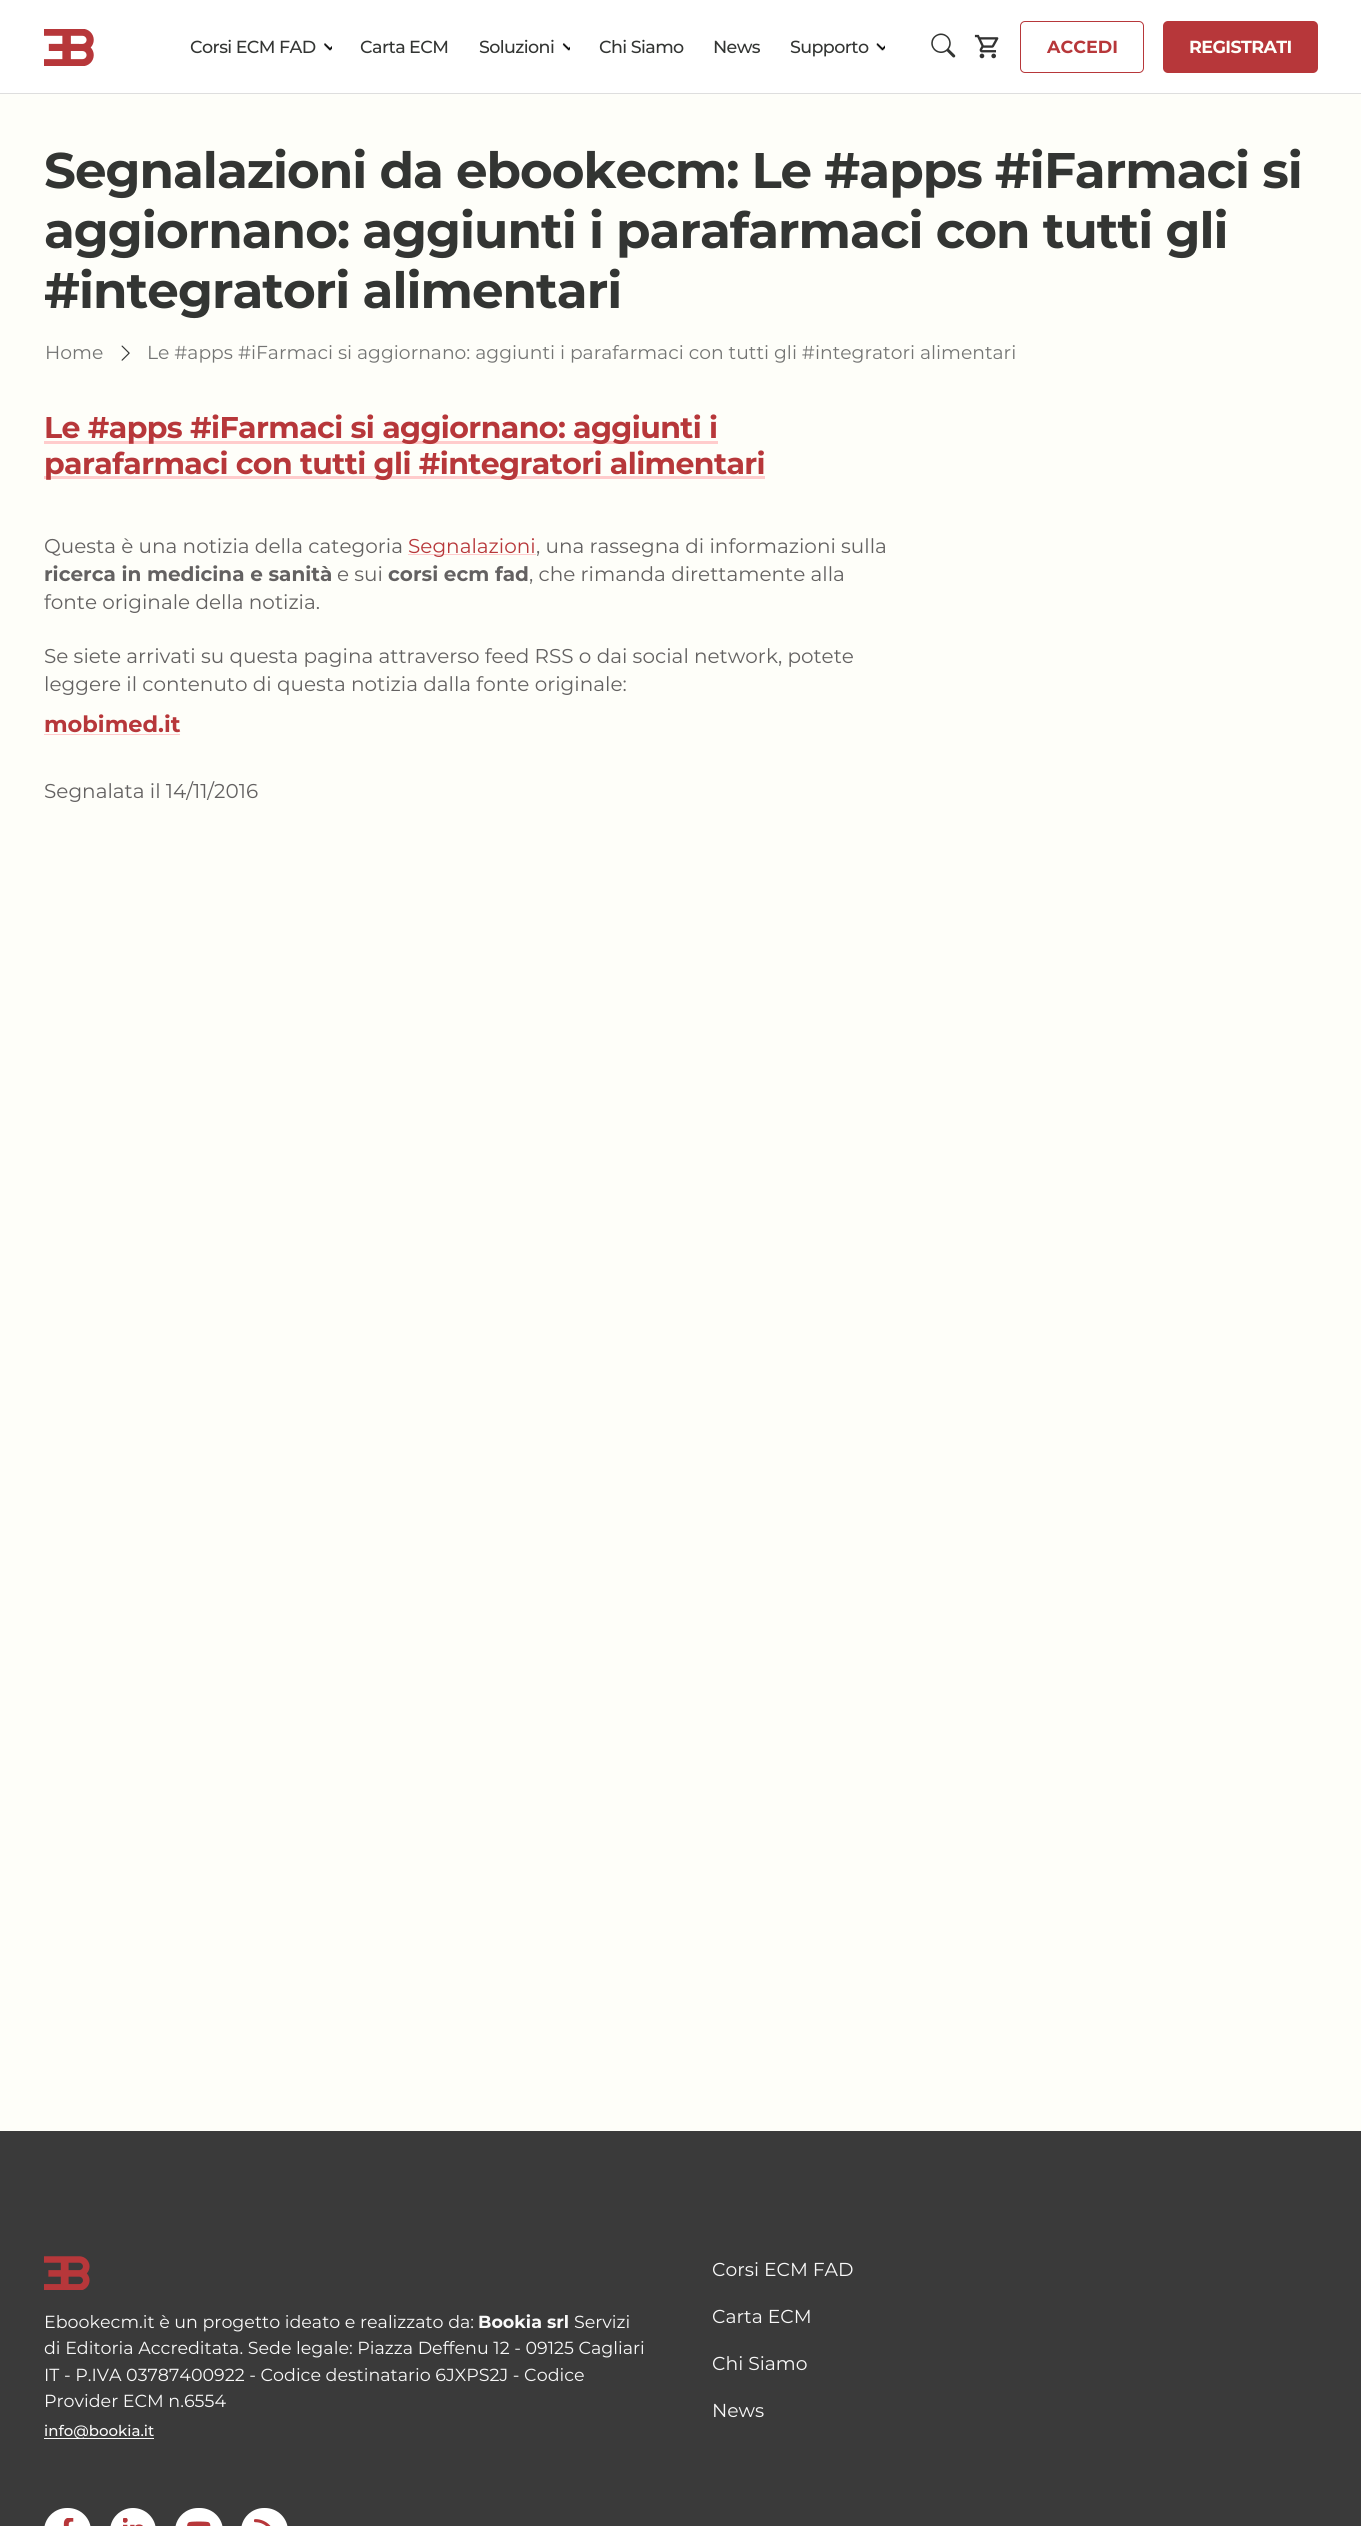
#include <cairo.h>
#include <math.h>
#include <stddef.h>


static void spaced_text(cairo_t *cr, double x, double y, const char *s, double letter, double word) {
    cairo_move_to(cr, x, y);
    while (*s) {
        char ch[5] = {0};
        int n = 0;
        do ch[n++] = *s++; while ((*s & 0xC0) == 0x80);
        cairo_show_text(cr, ch);
        cairo_rel_move_to(cr, letter + word * (*ch == ' '), 0);
    }
}

static void round_rect(cairo_t *cr, double x, double y, double w, double h, double r) {
    cairo_new_sub_path(cr);
    cairo_arc(cr, x + w - r, y + h - r, r, 0, M_PI / 2);
    cairo_arc(cr, x + r, y + h - r, r, M_PI / 2, M_PI);
    cairo_arc(cr, x + r, y + r, r, M_PI, 1.5 * M_PI);
    cairo_arc(cr, x + w - r, y + r, r, 1.5 * M_PI, 2 * M_PI);
    cairo_close_path(cr);
}

static void picture(cairo_t *cr, const char *path, double x, double y, double w, double h) {
    cairo_surface_t *image = cairo_image_surface_create_from_png(path);
    cairo_save(cr);
    cairo_set_source_surface(cr, image, x, y);
    cairo_rectangle(cr, x, y, w, h);
    cairo_fill(cr);
    cairo_restore(cr);
    cairo_surface_destroy(image);
}

int main(void) {
    cairo_surface_t *surface = cairo_image_surface_create(CAIRO_FORMAT_RGB24, 1361, 2526);
    cairo_t *cr = cairo_create(surface);
    cairo_font_options_t *options = cairo_font_options_create();
    cairo_font_options_set_hint_metrics(options, CAIRO_HINT_METRICS_OFF);
    cairo_font_options_set_hint_style(options, CAIRO_HINT_STYLE_NONE);
    cairo_set_font_options(cr, options);
    cairo_set_miter_limit(cr, 4);
    cairo_set_source_rgb(cr, 0.996, 0.996, 0.976);
    cairo_paint(cr);
    cairo_set_source_rgb(cr, 1, 1, 1);
    cairo_rectangle(cr, 0, 0, 1361, 93);
    cairo_fill(cr);
    cairo_set_source_rgb(cr, 0.871, 0.871, 0.871);
    cairo_rectangle(cr, 0, 93, 1361, 1);
    cairo_fill(cr);
    picture(cr, "img1.png", 44, 29, 50, 37);
    cairo_select_font_face(cr, "Montserrat Medium", CAIRO_FONT_SLANT_NORMAL, CAIRO_FONT_WEIGHT_NORMAL);
    cairo_set_font_size(cr, 17.5);
    cairo_set_source_rgb(cr, 0.2, 0.208, 0.2);
    spaced_text(cr, 190, 53, "Corsi ECM FAD", -0.6, 0);
    picture(cr, "img2.png", 324, 43, 8, 8);
    spaced_text(cr, 360, 53, "Carta ECM", -0.6, 0);
    spaced_text(cr, 479, 53, "Soluzioni", -0.6, 0);
    picture(cr, "img3.png", 562, 43, 8, 8);
    spaced_text(cr, 599, 53, "Chi Siamo", -0.6, 0);
    spaced_text(cr, 713, 53, "News", -0.6, 0);
    spaced_text(cr, 790, 53, "Supporto", -0.6, 0);
    picture(cr, "img4.png", 876, 43, 9, 8);
    picture(cr, "img5.png", 931, 33, 25, 25);
    picture(cr, "img6.png", 974, 34, 25, 25);
    round_rect(cr, 1020.5, 21.5, 123, 51, 4.5);
    cairo_set_source_rgb(cr, 0.718, 0.216, 0.227);
    cairo_set_line_width(cr, 1);
    cairo_stroke(cr);
    cairo_select_font_face(cr, "Montserrat", CAIRO_FONT_SLANT_NORMAL, CAIRO_FONT_WEIGHT_BOLD);
    cairo_move_to(cr, 1047, 53);
    cairo_show_text(cr, "ACCEDI");
    round_rect(cr, 1163, 21, 155, 52, 5);
    cairo_fill(cr);
    cairo_set_source_rgb(cr, 0.996, 0.996, 0.976);
    spaced_text(cr, 1189, 53, "REGISTRATI", -0.6, 0);
    cairo_set_font_size(cr, 50);
    cairo_set_source_rgb(cr, 0.2, 0.208, 0.2);
    spaced_text(cr, 44, 188, "Segnalazioni da ebookecm: Le #apps #iFarmaci si", -1, 0);
    spaced_text(cr, 44, 248, "aggiornano: aggiunti i parafarmaci con tutti gli", -1, 0);
    spaced_text(cr, 44, 308, "#integratori alimentari", -1, 0);
    cairo_select_font_face(cr, "Montserrat", CAIRO_FONT_SLANT_NORMAL, CAIRO_FONT_WEIGHT_NORMAL);
    cairo_set_font_size(cr, 18.75);
    cairo_set_source_rgb(cr, 0.455, 0.459, 0.455);
    cairo_move_to(cr, 45, 359);
    cairo_show_text(cr, "Home");
    picture(cr, "img7.png", 121, 345, 9, 16);
    cairo_move_to(cr, 147, 359);
    cairo_show_text(cr, "Le #apps #iFarmaci si aggiornano: aggiunti i parafarmaci con tutti gli #integratori alimentari");
    cairo_set_source_rgb(cr, 1, 0.8, 0.8);
    cairo_rectangle(cr, 44, 441, 674, 3);
    cairo_fill(cr);
    cairo_select_font_face(cr, "Montserrat", CAIRO_FONT_SLANT_NORMAL, CAIRO_FONT_WEIGHT_BOLD);
    cairo_set_font_size(cr, 30);
    cairo_set_source_rgb(cr, 0.718, 0.216, 0.227);
    spaced_text(cr, 44, 438, "Le #apps #iFarmaci si aggiornano: aggiunti i", -0.6, 0);
    cairo_set_source_rgb(cr, 1, 0.8, 0.8);
    cairo_rectangle(cr, 44, 476, 721, 3);
    cairo_fill(cr);
    cairo_set_source_rgb(cr, 0.718, 0.216, 0.227);
    spaced_text(cr, 44, 474, "parafarmaci con tutti gli #integratori alimentari", -0.6, 0);
    cairo_select_font_face(cr, "Montserrat", CAIRO_FONT_SLANT_NORMAL, CAIRO_FONT_WEIGHT_NORMAL);
    cairo_set_font_size(cr, 20);
    cairo_set_source_rgb(cr, 0.388, 0.38, 0.38);
    cairo_move_to(cr, 44, 553);
    cairo_show_text(cr, "Questa è una notizia della categoria");
    cairo_set_source_rgb(cr, 1, 0.8, 0.8);
    cairo_rectangle(cr, 408, 554, 128, 1);
    cairo_fill(cr);
    cairo_set_source_rgb(cr, 0.718, 0.216, 0.227);
    cairo_move_to(cr, 408, 553);
    cairo_show_text(cr, "Segnalazioni");
    cairo_set_source_rgb(cr, 0.388, 0.38, 0.38);
    cairo_move_to(cr, 536, 553);
    cairo_show_text(cr, ", una rassegna di informazioni sulla");
    cairo_select_font_face(cr, "Montserrat", CAIRO_FONT_SLANT_NORMAL, CAIRO_FONT_WEIGHT_BOLD);
    cairo_move_to(cr, 44, 581);
    cairo_show_text(cr, "ricerca in medicina e sanità");
    cairo_select_font_face(cr, "Montserrat", CAIRO_FONT_SLANT_NORMAL, CAIRO_FONT_WEIGHT_NORMAL);
    cairo_move_to(cr, 337, 581);
    cairo_show_text(cr, "e sui");
    cairo_select_font_face(cr, "Montserrat", CAIRO_FONT_SLANT_NORMAL, CAIRO_FONT_WEIGHT_BOLD);
    cairo_move_to(cr, 388, 581);
    cairo_show_text(cr, "corsi ecm fad");
    cairo_select_font_face(cr, "Montserrat", CAIRO_FONT_SLANT_NORMAL, CAIRO_FONT_WEIGHT_NORMAL);
    cairo_move_to(cr, 529, 581);
    cairo_show_text(cr, ", che rimanda direttamente alla");
    cairo_move_to(cr, 44, 609);
    cairo_show_text(cr, "fonte originale della notizia.");
    cairo_move_to(cr, 44, 663);
    cairo_show_text(cr, "Se siete arrivati su questa pagina attraverso feed RSS o dai social network, potete");
    cairo_move_to(cr, 44, 691);
    cairo_show_text(cr, "leggere il contenuto di questa notizia dalla fonte originale:");
    cairo_select_font_face(cr, "Montserrat", CAIRO_FONT_SLANT_NORMAL, CAIRO_FONT_WEIGHT_BOLD);
    cairo_set_font_size(cr, 22.5);
    cairo_set_source_rgb(cr, 0.718, 0.216, 0.227);
    cairo_move_to(cr, 44, 732);
    cairo_show_text(cr, "mobimed.it");
    cairo_set_source_rgb(cr, 1, 0.8, 0.8);
    cairo_rectangle(cr, 44, 734, 136, 1);
    cairo_fill(cr);
    cairo_select_font_face(cr, "Montserrat", CAIRO_FONT_SLANT_NORMAL, CAIRO_FONT_WEIGHT_NORMAL);
    cairo_set_font_size(cr, 20);
    cairo_set_source_rgb(cr, 0.388, 0.38, 0.38);
    cairo_move_to(cr, 44, 798);
    cairo_show_text(cr, "Segnalata il 14/11/2016");
    cairo_set_source_rgb(cr, 0.227, 0.227, 0.227);
    cairo_rectangle(cr, 0, 2131, 1361, 395);
    cairo_fill(cr);
    picture(cr, "img8.png", 44, 2256, 46, 34);
    cairo_set_font_size(cr, 17.5);
    cairo_set_source_rgb(cr, 0.973, 0.973, 0.973);
    cairo_move_to(cr, 44, 2328);
    cairo_show_text(cr, "Ebookecm.it è un progetto ideato e realizzato da:");
    cairo_select_font_face(cr, "Montserrat", CAIRO_FONT_SLANT_NORMAL, CAIRO_FONT_WEIGHT_BOLD);
    cairo_move_to(cr, 478, 2328);
    cairo_show_text(cr, "Bookia srl");
    cairo_select_font_face(cr, "Montserrat", CAIRO_FONT_SLANT_NORMAL, CAIRO_FONT_WEIGHT_NORMAL);
    cairo_move_to(cr, 574, 2328);
    cairo_show_text(cr, "Servizi");
    cairo_move_to(cr, 44, 2354);
    cairo_show_text(cr, "di Editoria Accreditata. Sede legale: Piazza Deffenu 12 - 09125 Cagliari");
    cairo_move_to(cr, 44, 2381);
    cairo_show_text(cr, "IT - P.IVA 03787400922 - Codice destinatario 6JXPS2J - Codice");
    cairo_move_to(cr, 44, 2407);
    cairo_show_text(cr, "Provider ECM n.6554");
    cairo_rectangle(cr, 44, 2438, 110, 1);
    cairo_fill(cr);
    cairo_select_font_face(cr, "Montserrat Medium", CAIRO_FONT_SLANT_NORMAL, CAIRO_FONT_WEIGHT_NORMAL);
    cairo_set_font_size(cr, 15);
    cairo_move_to(cr, 44, 2436);
    cairo_show_text(cr, "info@bookia.it");
    cairo_set_source_rgb(cr, 1, 1, 1);
    round_rect(cr, 44, 2508, 47, 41, 23);
    cairo_fill(cr);
    picture(cr, "img9.png", 63, 2518, 11, 8);
    round_rect(cr, 110, 2508, 46, 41, 23);
    cairo_fill(cr);
    picture(cr, "img10.png", 123, 2518, 20, 8);
    round_rect(cr, 175, 2508, 48, 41, 23);
    cairo_fill(cr);
    picture(cr, "img11.png", 187, 2521, 24, 5);
    round_rect(cr, 241, 2508, 47, 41, 23);
    cairo_fill(cr);
    picture(cr, "img12.png", 254, 2519, 17, 7);
    cairo_select_font_face(cr, "Montserrat", CAIRO_FONT_SLANT_NORMAL, CAIRO_FONT_WEIGHT_NORMAL);
    cairo_set_font_size(cr, 18.75);
    cairo_set_source_rgb(cr, 0.973, 0.973, 0.973);
    cairo_move_to(cr, 712, 2276);
    cairo_show_text(cr, "Corsi ECM FAD");
    cairo_move_to(cr, 712, 2323);
    cairo_show_text(cr, "Carta ECM");
    cairo_move_to(cr, 712, 2370);
    cairo_show_text(cr, "Chi Siamo");
    cairo_move_to(cr, 712, 2417);
    cairo_show_text(cr, "News");
    cairo_surface_write_to_png(surface, "page.png");
    cairo_font_options_destroy(options);
    cairo_destroy(cr);
    cairo_surface_destroy(surface);
    return 0;
}
